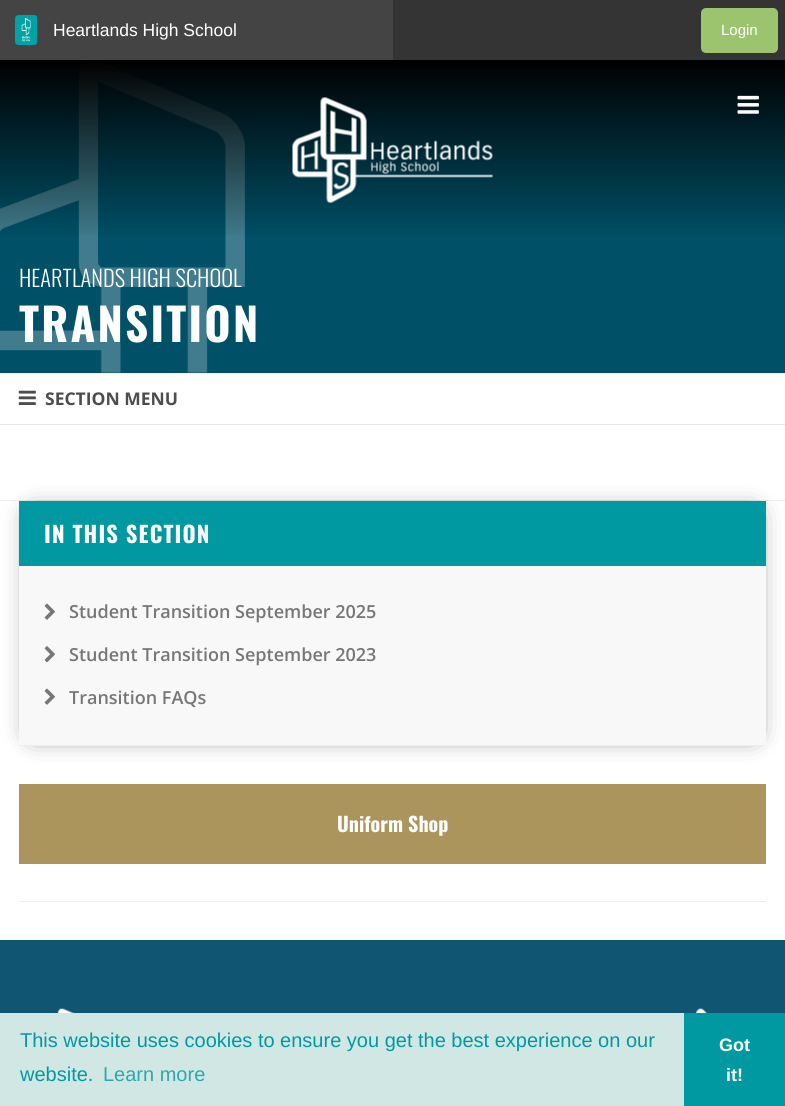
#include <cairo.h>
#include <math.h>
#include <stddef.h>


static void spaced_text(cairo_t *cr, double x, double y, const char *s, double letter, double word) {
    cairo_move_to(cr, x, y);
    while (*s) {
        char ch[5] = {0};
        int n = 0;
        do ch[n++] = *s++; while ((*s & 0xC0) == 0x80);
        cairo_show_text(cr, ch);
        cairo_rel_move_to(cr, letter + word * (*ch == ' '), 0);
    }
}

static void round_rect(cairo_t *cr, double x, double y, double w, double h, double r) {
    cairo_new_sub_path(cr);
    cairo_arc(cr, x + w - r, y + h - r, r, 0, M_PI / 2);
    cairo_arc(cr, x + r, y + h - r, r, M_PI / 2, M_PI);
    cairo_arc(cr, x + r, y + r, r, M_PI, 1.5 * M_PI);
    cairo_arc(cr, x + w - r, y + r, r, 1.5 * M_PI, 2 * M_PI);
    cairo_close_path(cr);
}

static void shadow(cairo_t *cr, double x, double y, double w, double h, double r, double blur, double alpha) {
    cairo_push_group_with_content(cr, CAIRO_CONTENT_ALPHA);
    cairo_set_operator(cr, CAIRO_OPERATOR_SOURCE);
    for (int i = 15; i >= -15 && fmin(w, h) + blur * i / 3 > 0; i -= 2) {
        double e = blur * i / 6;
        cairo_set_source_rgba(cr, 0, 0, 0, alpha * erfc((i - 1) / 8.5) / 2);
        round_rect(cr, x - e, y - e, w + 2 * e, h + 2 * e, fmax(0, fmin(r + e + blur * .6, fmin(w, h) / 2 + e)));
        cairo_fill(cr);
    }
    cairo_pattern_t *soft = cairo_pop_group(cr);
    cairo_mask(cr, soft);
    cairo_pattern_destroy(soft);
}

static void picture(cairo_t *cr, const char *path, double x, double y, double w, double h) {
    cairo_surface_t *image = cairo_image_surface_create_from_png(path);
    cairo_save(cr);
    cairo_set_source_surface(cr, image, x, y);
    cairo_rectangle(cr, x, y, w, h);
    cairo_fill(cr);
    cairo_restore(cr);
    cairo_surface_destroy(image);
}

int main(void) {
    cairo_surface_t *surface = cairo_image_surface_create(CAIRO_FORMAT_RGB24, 785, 1106);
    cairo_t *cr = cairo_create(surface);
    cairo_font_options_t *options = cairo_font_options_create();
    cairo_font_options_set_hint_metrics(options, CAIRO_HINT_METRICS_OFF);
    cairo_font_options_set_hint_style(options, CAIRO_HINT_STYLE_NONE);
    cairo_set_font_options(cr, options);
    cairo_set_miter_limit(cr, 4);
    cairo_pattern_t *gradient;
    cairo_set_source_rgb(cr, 0.204, 0.204, 0.204);
    cairo_paint(cr);
    cairo_set_source_rgb(cr, 0.267, 0.267, 0.267);
    cairo_rectangle(cr, 0, 0, 393, 60);
    cairo_fill(cr);
    picture(cr, "img1.png", 15, 15, 23, 30);
    cairo_select_font_face(cr, "Liberation Sans", CAIRO_FONT_SLANT_NORMAL, CAIRO_FONT_WEIGHT_NORMAL);
    cairo_set_font_size(cr, 17.5);
    cairo_set_source_rgb(cr, 1, 1, 1);
    cairo_move_to(cr, 53, 36);
    cairo_show_text(cr, "Heartlands High School");
    cairo_set_source_rgb(cr, 0.612, 0.765, 0.427);
    round_rect(cr, 701, 8, 77, 45, 5);
    cairo_fill(cr);
    cairo_set_font_size(cr, 15);
    cairo_set_source_rgb(cr, 1, 1, 1);
    cairo_move_to(cr, 721, 35);
    cairo_show_text(cr, "Login");
    cairo_set_source_rgb(cr, 0, 0.314, 0.404);
    cairo_rectangle(cr, 0, 61, 785, 312);
    cairo_fill(cr);
    picture(cr, "img4.png", 0, 61, 245, 312);
    gradient = cairo_pattern_create_linear(393, 60, 393, 240);
    cairo_pattern_add_color_stop_rgba(gradient, 0, 0, 0, 0, 1);
    cairo_pattern_add_color_stop_rgba(gradient, 1, 0, 0, 0, 0);
    cairo_set_source(cr, gradient);
    cairo_pattern_destroy(gradient);
    cairo_rectangle(cr, 0, 60, 785, 176);
    cairo_fill(cr);
    picture(cr, "img2.png", 292, 97, 201, 106);
    picture(cr, "img3.png", 737, 95, 22, 19);
    cairo_set_source_rgb(cr, 1, 1, 1);
    cairo_rectangle(cr, 0, 373, 785, 567);
    cairo_fill(cr);
    cairo_select_font_face(cr, "Oswald Light", CAIRO_FONT_SLANT_NORMAL, CAIRO_FONT_WEIGHT_NORMAL);
    cairo_set_font_size(cr, 22.5);
    cairo_move_to(cr, 19, 287);
    cairo_show_text(cr, "HEARTLANDS HIGH SCHOOL");
    cairo_select_font_face(cr, "Oswald", CAIRO_FONT_SLANT_NORMAL, CAIRO_FONT_WEIGHT_BOLD);
    cairo_set_font_size(cr, 45);
    spaced_text(cr, 19, 342, "TRANSITION", 2.25, 0);
    cairo_set_source_rgb(cr, 0.902, 0.902, 0.902);
    cairo_rectangle(cr, 0, 424, 785, 1);
    cairo_fill(cr);
    picture(cr, "img5.png", 18, 390, 18, 15);
    cairo_select_font_face(cr, "Open Sans", CAIRO_FONT_SLANT_NORMAL, CAIRO_FONT_WEIGHT_BOLD);
    cairo_set_font_size(cr, 17.5);
    cairo_set_source_rgb(cr, 0.298, 0.302, 0.31);
    cairo_move_to(cr, 45, 405);
    cairo_show_text(cr, "SECTION MENU");
    cairo_set_source_rgb(cr, 0.933, 0.933, 0.933);
    cairo_rectangle(cr, 0, 500, 785, 1);
    cairo_fill(cr);
    cairo_set_source_rgb(cr, 0, 0, 0);
    shadow(cr, 33, 515, 720, 218, 0, 13, 0.75);
    cairo_set_source_rgb(cr, 0.969, 0.969, 0.969);
    cairo_rectangle(cr, 19, 566, 747, 179);
    cairo_fill(cr);
    cairo_set_source_rgb(cr, 0.933, 0.933, 0.933);
    cairo_rectangle(cr, 19, 745, 747, 1);
    cairo_fill(cr);
    cairo_set_source_rgb(cr, 0, 0.6, 0.631);
    cairo_rectangle(cr, 19, 501, 747, 65);
    cairo_fill(cr);
    cairo_select_font_face(cr, "Oswald", CAIRO_FONT_SLANT_NORMAL, CAIRO_FONT_WEIGHT_BOLD);
    cairo_set_font_size(cr, 22.5);
    cairo_set_source_rgb(cr, 1, 1, 1);
    spaced_text(cr, 44, 543, "IN THIS SECTION", 1.1, 0);
    picture(cr, "img6.png", 44, 603, 11, 17);
    cairo_select_font_face(cr, "Open Sans SemiBold", CAIRO_FONT_SLANT_NORMAL, CAIRO_FONT_WEIGHT_NORMAL);
    cairo_set_font_size(cr, 18);
    cairo_set_source_rgb(cr, 0.467, 0.467, 0.467);
    cairo_move_to(cr, 69, 618);
    cairo_show_text(cr, "Student Transition September 2025");
    picture(cr, "img7.png", 44, 646, 11, 17);
    cairo_move_to(cr, 69, 661);
    cairo_show_text(cr, "Student Transition September 2023");
    picture(cr, "img6.png", 44, 688, 11, 17);
    cairo_move_to(cr, 69, 704);
    cairo_show_text(cr, "Transition FAQs");
    cairo_set_source_rgb(cr, 0.933, 0.933, 0.933);
    cairo_rectangle(cr, 19, 901, 747, 1);
    cairo_fill(cr);
    cairo_set_source_rgb(cr, 0.671, 0.584, 0.361);
    cairo_rectangle(cr, 19, 784, 747, 80);
    cairo_fill(cr);
    cairo_select_font_face(cr, "Oswald", CAIRO_FONT_SLANT_NORMAL, CAIRO_FONT_WEIGHT_BOLD);
    cairo_set_font_size(cr, 20);
    cairo_set_source_rgb(cr, 1, 1, 1);
    cairo_move_to(cr, 337, 832);
    cairo_show_text(cr, "Uniform Shop");
    cairo_set_source_rgb(cr, 0.063, 0.337, 0.451);
    cairo_rectangle(cr, 0, 940, 785, 73);
    cairo_fill(cr);
    picture(cr, "img8.png", 57, 1008, 17, 5);
    picture(cr, "img9.png", 695, 1008, 12, 5);
    cairo_set_source_rgb(cr, 0.82, 0.906, 0.89);
    cairo_rectangle(cr, 0, 1013, 684, 93);
    cairo_fill(cr);
    cairo_select_font_face(cr, "Liberation Sans", CAIRO_FONT_SLANT_NORMAL, CAIRO_FONT_WEIGHT_NORMAL);
    cairo_set_source_rgb(cr, 0, 0.6, 0.631);
    cairo_move_to(cr, 20, 1047);
    cairo_show_text(cr, "This website uses cookies to ensure you get the best experience on our");
    cairo_move_to(cr, 20, 1081);
    cairo_show_text(cr, "website.");
    cairo_set_source_rgb(cr, 0.165, 0.663, 0.682);
    cairo_move_to(cr, 103, 1081);
    cairo_show_text(cr, "Learn more");
    cairo_set_source_rgb(cr, 0, 0.6, 0.631);
    cairo_rectangle(cr, 684, 1013, 101, 93);
    cairo_fill(cr);
    cairo_select_font_face(cr, "Liberation Sans", CAIRO_FONT_SLANT_NORMAL, CAIRO_FONT_WEIGHT_BOLD);
    cairo_set_font_size(cr, 18);
    cairo_set_source_rgb(cr, 1, 1, 1);
    cairo_move_to(cr, 719, 1051);
    cairo_show_text(cr, "Got");
    cairo_move_to(cr, 726, 1081);
    cairo_show_text(cr, "it!");
    cairo_surface_write_to_png(surface, "page.png");
    cairo_font_options_destroy(options);
    cairo_destroy(cr);
    cairo_surface_destroy(surface);
    return 0;
}
